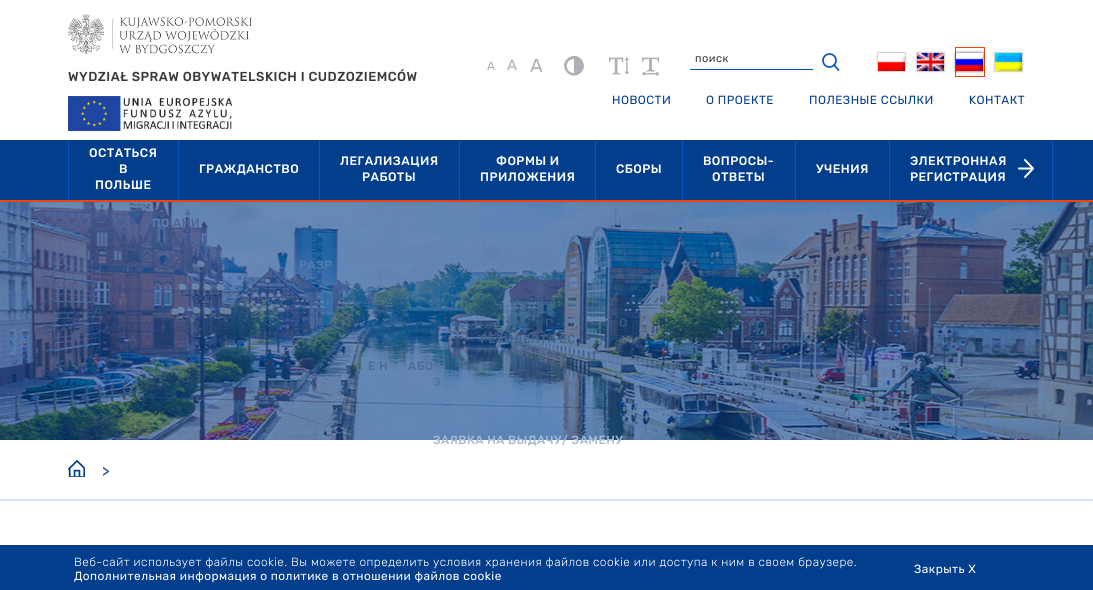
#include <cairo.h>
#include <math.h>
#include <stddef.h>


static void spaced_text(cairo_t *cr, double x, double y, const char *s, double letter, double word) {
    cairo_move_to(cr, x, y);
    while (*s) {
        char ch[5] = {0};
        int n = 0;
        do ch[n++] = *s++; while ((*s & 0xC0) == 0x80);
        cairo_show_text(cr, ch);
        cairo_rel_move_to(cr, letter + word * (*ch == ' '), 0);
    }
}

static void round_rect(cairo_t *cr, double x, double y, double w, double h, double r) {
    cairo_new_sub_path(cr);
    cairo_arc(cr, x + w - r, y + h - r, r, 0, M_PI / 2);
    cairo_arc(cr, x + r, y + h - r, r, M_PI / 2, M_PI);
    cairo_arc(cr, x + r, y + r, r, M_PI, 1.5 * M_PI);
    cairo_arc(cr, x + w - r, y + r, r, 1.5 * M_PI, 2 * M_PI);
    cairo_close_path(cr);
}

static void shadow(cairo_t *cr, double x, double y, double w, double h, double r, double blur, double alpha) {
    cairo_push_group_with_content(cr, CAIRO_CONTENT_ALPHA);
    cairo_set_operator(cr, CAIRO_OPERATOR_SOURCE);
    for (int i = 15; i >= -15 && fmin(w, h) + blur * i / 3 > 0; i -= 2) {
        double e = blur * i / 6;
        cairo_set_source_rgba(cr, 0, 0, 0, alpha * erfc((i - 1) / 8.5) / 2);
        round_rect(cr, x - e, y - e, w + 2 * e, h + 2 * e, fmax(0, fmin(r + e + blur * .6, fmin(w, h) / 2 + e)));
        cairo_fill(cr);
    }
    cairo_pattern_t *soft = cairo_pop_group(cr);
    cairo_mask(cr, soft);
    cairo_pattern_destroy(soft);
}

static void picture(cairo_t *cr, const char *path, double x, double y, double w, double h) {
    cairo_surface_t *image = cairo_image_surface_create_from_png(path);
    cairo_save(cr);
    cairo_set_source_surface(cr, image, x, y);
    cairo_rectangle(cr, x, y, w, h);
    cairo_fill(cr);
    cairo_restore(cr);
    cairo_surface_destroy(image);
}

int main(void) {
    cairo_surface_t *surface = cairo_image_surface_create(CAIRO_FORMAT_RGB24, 1093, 590);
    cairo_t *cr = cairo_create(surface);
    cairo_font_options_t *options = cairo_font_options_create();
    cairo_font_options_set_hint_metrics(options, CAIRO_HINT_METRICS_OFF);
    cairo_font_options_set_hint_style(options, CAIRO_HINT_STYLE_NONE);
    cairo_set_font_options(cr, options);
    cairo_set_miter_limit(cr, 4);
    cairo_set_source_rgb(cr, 1, 1, 1);
    cairo_paint(cr);
    picture(cr, "img9.png", 0, 202, 1093, 238);
    cairo_set_source_rgb(cr, 0.392, 0.392, 0.392);
    shadow(cr, 0, 0, 1093, 202, 0, 2.5, 0.3);
    cairo_set_source_rgb(cr, 1, 1, 1);
    cairo_rectangle(cr, 0, 0, 1093, 140);
    cairo_fill(cr);
    picture(cr, "img1.png", 68, 14, 184, 40);
    cairo_select_font_face(cr, "Rubik Medium", CAIRO_FONT_SLANT_NORMAL, CAIRO_FONT_WEIGHT_NORMAL);
    cairo_set_font_size(cr, 13);
    cairo_set_source_rgb(cr, 0.22, 0.22, 0.22);
    spaced_text(cr, 68, 81, "WYDZIAŁ SPRAW OBYWATELSKICH I CUDZOZIEMCÓW", 0.46, 0);
    picture(cr, "img2.png", 68, 96, 164, 35);
    cairo_select_font_face(cr, "Rubik", CAIRO_FONT_SLANT_NORMAL, CAIRO_FONT_WEIGHT_NORMAL);
    cairo_set_font_size(cr, 12);
    cairo_set_source_rgb(cr, 0.678, 0.694, 0.71);
    spaced_text(cr, 487, 70, "A", 0.46, 0);
    cairo_set_font_size(cr, 15);
    spaced_text(cr, 507, 70, "A", 0.46, 0);
    cairo_set_font_size(cr, 19);
    spaced_text(cr, 530, 72, "A", 0.46, 0);
    cairo_new_path(cr);
    cairo_move_to(cr, 574, 73);
    cairo_line_to(cr, 574, 59);
    cairo_curve_to(cr, 564.5, 59, 564.5, 73, 574, 73);
    cairo_close_path(cr);
    cairo_move_to(cr, 582.5, 61);
    cairo_curve_to(cr, 589, 72, 572, 82, 565.5, 70.5);
    cairo_curve_to(cr, 559, 59.5, 576, 49.5, 582.5, 61);
    cairo_close_path(cr);
    cairo_fill(cr);
    picture(cr, "img3.png", 609, 57, 20, 18);
    picture(cr, "img4.png", 642, 57, 18, 19);
    cairo_set_font_size(cr, 11);
    cairo_set_source_rgb(cr, 0.22, 0.22, 0.22);
    spaced_text(cr, 695, 62, "поиск", 0.46, 0);
    cairo_set_source_rgb(cr, 0.016, 0.333, 0.749);
    cairo_rectangle(cr, 690, 69, 123, 1);
    cairo_fill(cr);
    cairo_arc(cr, 829.5, 60.5, 6.5, 0, 2 * M_PI);
    cairo_set_line_width(cr, 1.7);
    cairo_stroke(cr);
    cairo_new_path(cr);
    cairo_move_to(cr, 838.5, 70);
    cairo_line_to(cr, 834, 65);
    cairo_set_line_cap(cr, CAIRO_LINE_CAP_ROUND);
    cairo_set_line_join(cr, CAIRO_LINE_JOIN_ROUND);
    cairo_stroke(cr);
    cairo_save(cr);
    cairo_set_fill_rule(cr, CAIRO_FILL_RULE_EVEN_ODD);
    cairo_new_path(cr);
    cairo_move_to(cr, 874, 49);
    cairo_line_to(cr, 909, 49);
    cairo_line_to(cr, 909, 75);
    cairo_line_to(cr, 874, 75);
    cairo_close_path(cr);
    cairo_move_to(cr, 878, 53);
    cairo_line_to(cr, 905, 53);
    cairo_line_to(cr, 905, 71);
    cairo_line_to(cr, 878, 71);
    cairo_close_path(cr);
    cairo_clip(cr);
    cairo_set_source_rgb(cr, 0, 0, 0);
    shadow(cr, 878, 53, 27, 18, 0, 1, 0.5);
    cairo_restore(cr);
    picture(cr, "img5.png", 878, 56, 27, 15);
    cairo_set_source_rgb(cr, 0, 0, 0);
    shadow(cr, 917, 53, 27, 18, 0, 1, 0.5);
    picture(cr, "img6.png", 917, 53, 27, 18);
    cairo_rectangle(cr, 955.5, 47.5, 29, 29);
    cairo_set_source_rgb(cr, 0.949, 0.267, 0.02);
    cairo_set_line_width(cr, 1);
    cairo_set_line_cap(cr, CAIRO_LINE_CAP_BUTT);
    cairo_set_line_join(cr, CAIRO_LINE_JOIN_MITER);
    cairo_stroke(cr);
    cairo_save(cr);
    cairo_set_fill_rule(cr, CAIRO_FILL_RULE_EVEN_ODD);
    cairo_new_path(cr);
    cairo_move_to(cr, 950, 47);
    cairo_line_to(cr, 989, 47);
    cairo_line_to(cr, 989, 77);
    cairo_line_to(cr, 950, 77);
    cairo_close_path(cr);
    cairo_move_to(cr, 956, 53);
    cairo_line_to(cr, 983, 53);
    cairo_line_to(cr, 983, 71);
    cairo_line_to(cr, 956, 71);
    cairo_close_path(cr);
    cairo_clip(cr);
    cairo_set_source_rgb(cr, 0, 0, 0);
    shadow(cr, 956, 53, 27, 18, 0, 1.5, 0.7);
    cairo_restore(cr);
    picture(cr, "img7.png", 956, 56, 27, 15);
    cairo_set_source_rgb(cr, 0, 0, 0);
    shadow(cr, 995, 53, 27, 18, 0, 1, 0.5);
    picture(cr, "img8.png", 995, 53, 27, 18);
    cairo_set_font_size(cr, 11.85);
    cairo_set_source_rgb(cr, 0.012, 0.243, 0.549);
    spaced_text(cr, 612, 104, "НОВОСТИ", 0.46, 0);
    spaced_text(cr, 706, 104, "О ПРОЕКТЕ", 0.46, 0);
    spaced_text(cr, 809, 104, "ПОЛЕЗНЫЕ ССЫЛКИ", 0.46, 0);
    spaced_text(cr, 969, 104, "KОНТАКТ", 0.46, 0);
    cairo_rectangle(cr, 0, 140, 1093, 60);
    cairo_fill(cr);
    cairo_set_source_rgb(cr, 0.949, 0.267, 0.02);
    cairo_rectangle(cr, 0, 200, 1093, 2);
    cairo_fill(cr);
    cairo_set_source_rgb(cr, 0.016, 0.333, 0.749);
    cairo_rectangle(cr, 68, 140, 1, 60);
    cairo_fill(cr);
    cairo_select_font_face(cr, "Rubik Medium", CAIRO_FONT_SLANT_NORMAL, CAIRO_FONT_WEIGHT_NORMAL);
    cairo_set_font_size(cr, 12.25);
    cairo_set_source_rgb(cr, 1, 1, 1);
    spaced_text(cr, 89, 157, "ОСТАТЬСЯ", 0.46, 0);
    spaced_text(cr, 119, 173, "В", 0.46, 0);
    spaced_text(cr, 95, 189, "ПОЛЬШЕ", 0.46, 0);
    cairo_set_font_size(cr, 11.85);
    cairo_set_source_rgb(cr, 0.302, 0.388, 0.584);
    spaced_text(cr, 173, 227, "АНИ", 0.46, 0);
    cairo_set_source_rgb(cr, 0.016, 0.333, 0.749);
    cairo_rectangle(cr, 178, 140, 1, 60);
    cairo_fill(cr);
    cairo_set_font_size(cr, 12.25);
    cairo_set_source_rgb(cr, 1, 1, 1);
    spaced_text(cr, 199, 173, "ГРАЖДАНСТВО", 0.46, 0);
    cairo_set_font_size(cr, 11.85);
    cairo_set_source_rgb(cr, 0.369, 0.494, 0.678);
    spaced_text(cr, 152, 227, "ПО", 0.46, 0);
    spaced_text(cr, 201, 242, "Г", 0.46, 0);
    cairo_set_source_rgb(cr, 0.016, 0.333, 0.749);
    cairo_rectangle(cr, 319, 140, 1, 60);
    cairo_fill(cr);
    cairo_set_font_size(cr, 12.25);
    cairo_set_source_rgb(cr, 1, 1, 1);
    spaced_text(cr, 340, 165, "ЛЕГАЛИЗАЦИЯ", 0.46, 0);
    spaced_text(cr, 362, 181, "РАБОТЫ", 0.46, 0);
    cairo_set_font_size(cr, 11.85);
    cairo_set_source_rgb(cr, 0.333, 0.49, 0.686);
    spaced_text(cr, 299, 269, "РАЗР", 0.46, 0);
    cairo_set_source_rgb(cr, 0.286, 0.424, 0.592);
    spaced_text(cr, 368, 370, "Е Н", 0.46, 0);
    spaced_text(cr, 408, 370, "АБО", 0.46, 0);
    cairo_set_source_rgb(cr, 0.016, 0.333, 0.749);
    cairo_rectangle(cr, 459, 140, 1, 60);
    cairo_fill(cr);
    cairo_set_font_size(cr, 12.25);
    cairo_set_source_rgb(cr, 1, 1, 1);
    spaced_text(cr, 496, 165, "ФОРМЫ И", 0.46, 0);
    spaced_text(cr, 480, 181, "ПРИЛОЖЕНИЯ", 0.46, 0);
    cairo_set_font_size(cr, 11.85);
    cairo_set_source_rgb(cr, 0.204, 0.357, 0.525);
    spaced_text(cr, 545, 327, "Г", 0.46, 0);
    spaced_text(cr, 619, 327, "О", 0.46, 0);
    cairo_set_source_rgb(cr, 0.255, 0.388, 0.553);
    spaced_text(cr, 480, 343, "РЕЗИДЕНТА EC", 0.46, 0);
    cairo_set_source_rgb(cr, 0.31, 0.451, 0.62);
    spaced_text(cr, 433, 386, "З", 0.46, 0);
    cairo_set_source_rgb(cr, 0.651, 0.729, 0.827);
    spaced_text(cr, 433, 444, "ЗАЯВКА НА ВЫДАЧУ/ ЗАМЕНУ", 0.46, 0);
    cairo_set_source_rgb(cr, 0.016, 0.333, 0.749);
    cairo_rectangle(cr, 595, 140, 1, 60);
    cairo_fill(cr);
    cairo_set_font_size(cr, 12.25);
    cairo_set_source_rgb(cr, 1, 1, 1);
    spaced_text(cr, 616, 173, "СБОРЫ", 0.46, 0);
    cairo_set_source_rgb(cr, 0.016, 0.333, 0.749);
    cairo_rectangle(cr, 682, 140, 1, 60);
    cairo_fill(cr);
    cairo_set_source_rgb(cr, 1, 1, 1);
    spaced_text(cr, 703, 165, "ВОПРОСЫ-", 0.46, 0);
    spaced_text(cr, 712, 181, "ОТВЕТЫ", 0.46, 0);
    cairo_set_source_rgb(cr, 0.016, 0.333, 0.749);
    cairo_rectangle(cr, 795, 140, 1, 60);
    cairo_fill(cr);
    cairo_set_source_rgb(cr, 1, 1, 1);
    spaced_text(cr, 816, 173, "УЧЕНИЯ", 0.46, 0);
    cairo_set_source_rgb(cr, 0.016, 0.333, 0.749);
    cairo_rectangle(cr, 1052, 140, 1, 60);
    cairo_fill(cr);
    cairo_rectangle(cr, 889, 140, 1, 60);
    cairo_fill(cr);
    cairo_set_source_rgb(cr, 1, 1, 1);
    spaced_text(cr, 910, 165, "ЭЛЕКТРОННАЯ", 0.46, 0);
    spaced_text(cr, 910, 181, "РЕГИСТРАЦИЯ", 0.46, 0);
    cairo_new_path(cr);
    cairo_move_to(cr, 1019, 168.5);
    cairo_line_to(cr, 1033, 168.5);
    cairo_move_to(cr, 1025, 160);
    cairo_line_to(cr, 1033, 168.5);
    cairo_line_to(cr, 1025, 177);
    cairo_set_line_width(cr, 2);
    cairo_set_line_cap(cr, CAIRO_LINE_CAP_ROUND);
    cairo_set_line_join(cr, CAIRO_LINE_JOIN_ROUND);
    cairo_stroke(cr);
    cairo_set_source_rgb(cr, 0.831, 0.906, 1);
    cairo_rectangle(cr, 0, 499, 1093, 2);
    cairo_fill(cr);
    picture(cr, "img10.png", 68, 460, 17, 17);
    cairo_select_font_face(cr, "Rubik", CAIRO_FONT_SLANT_NORMAL, CAIRO_FONT_WEIGHT_NORMAL);
    cairo_set_font_size(cr, 15);
    cairo_set_source_rgb(cr, 0.012, 0.243, 0.549);
    spaced_text(cr, 102, 476, ">", 0.46, 0);
    cairo_rectangle(cr, 0, 545, 1093, 45);
    cairo_fill(cr);
    cairo_select_font_face(cr, "Rubik Light", CAIRO_FONT_SLANT_NORMAL, CAIRO_FONT_WEIGHT_NORMAL);
    cairo_set_font_size(cr, 11.85);
    cairo_set_source_rgb(cr, 1, 1, 1);
    spaced_text(cr, 74, 566, "Веб-сайт использует файлы cookie. Вы можете определить условия хранения файлов cookie или доступа к ним в своем браузере.", 0.46, 0);
    cairo_select_font_face(cr, "Rubik", CAIRO_FONT_SLANT_NORMAL, CAIRO_FONT_WEIGHT_NORMAL);
    spaced_text(cr, 74, 580, "Дополнительная информация о политике в отношении файлов cookie", 0.46, 0);
    spaced_text(cr, 914, 573, "Закрыть X", 0.46, 0);
    cairo_surface_write_to_png(surface, "page.png");
    cairo_font_options_destroy(options);
    cairo_destroy(cr);
    cairo_surface_destroy(surface);
    return 0;
}
